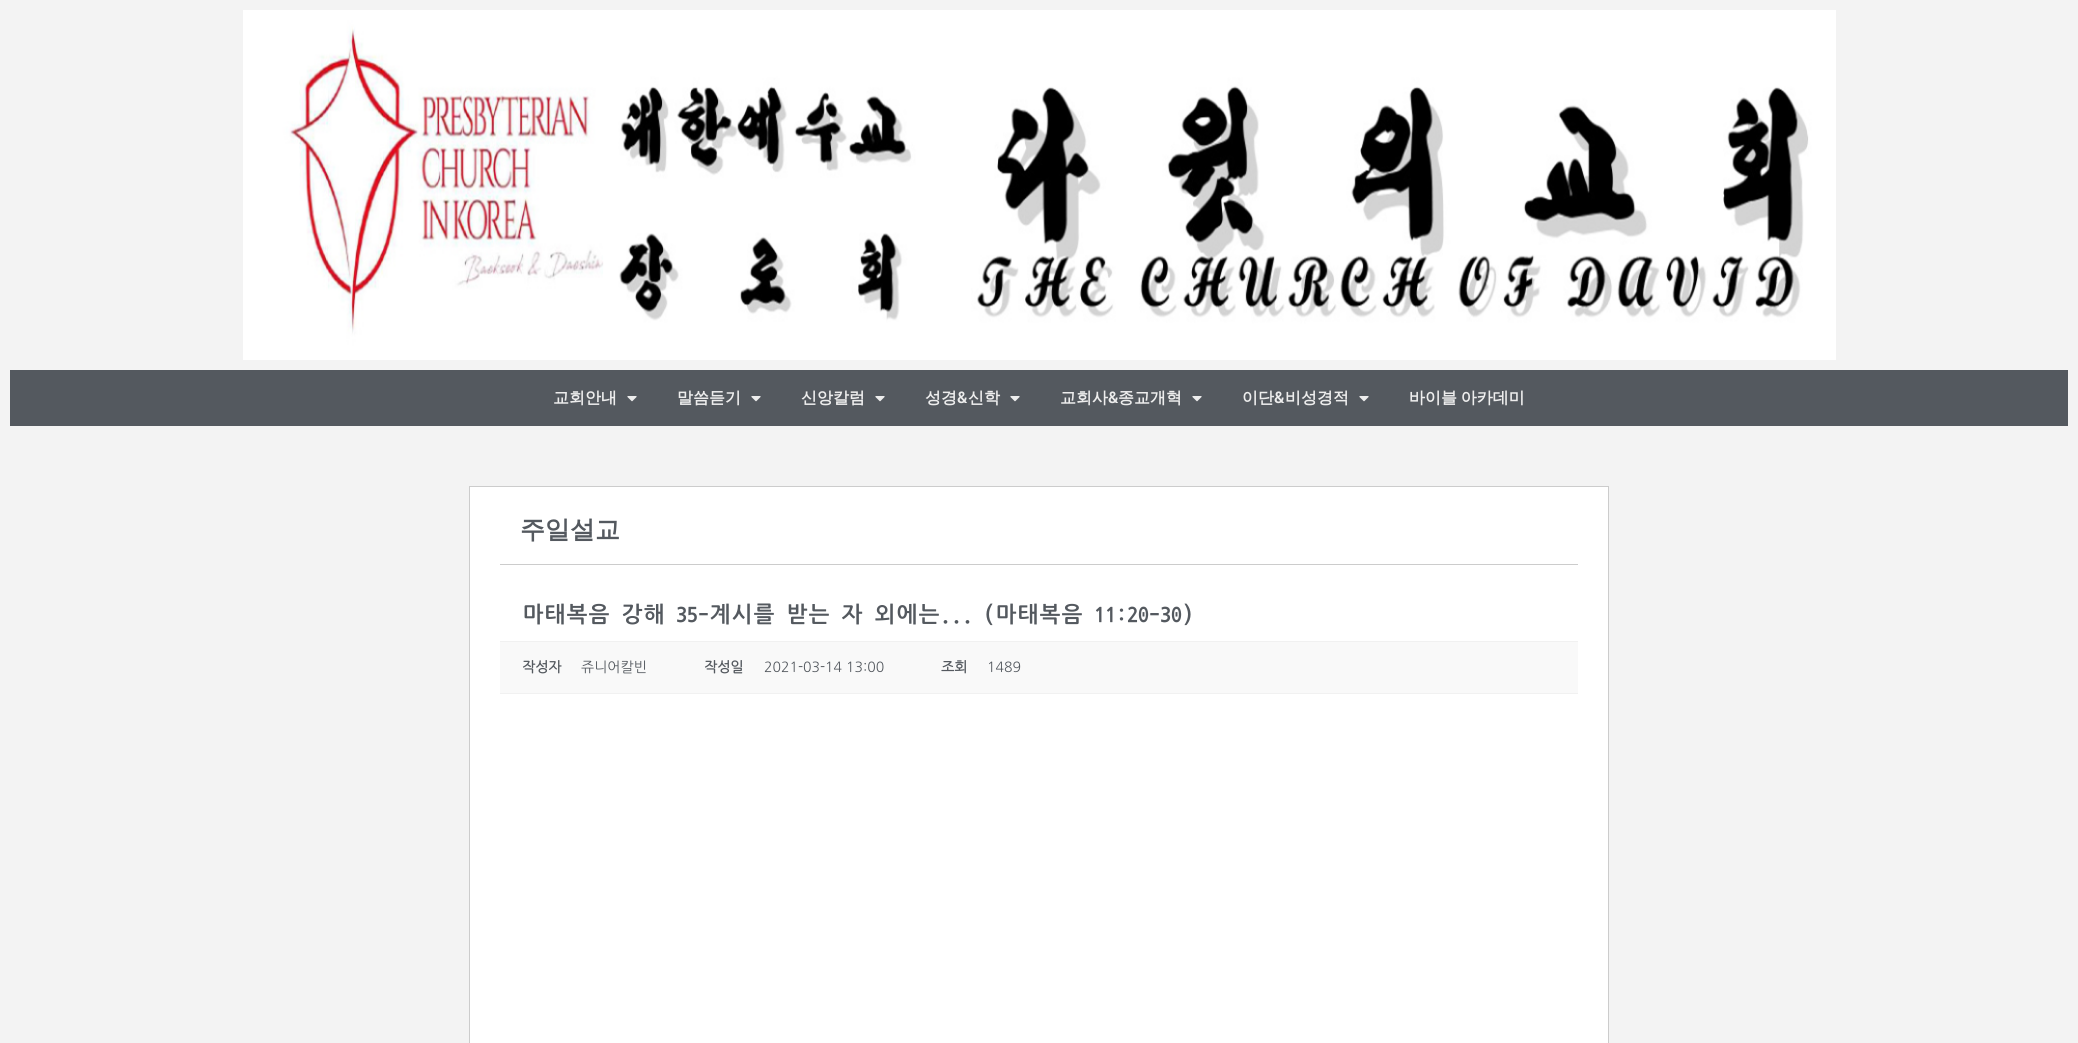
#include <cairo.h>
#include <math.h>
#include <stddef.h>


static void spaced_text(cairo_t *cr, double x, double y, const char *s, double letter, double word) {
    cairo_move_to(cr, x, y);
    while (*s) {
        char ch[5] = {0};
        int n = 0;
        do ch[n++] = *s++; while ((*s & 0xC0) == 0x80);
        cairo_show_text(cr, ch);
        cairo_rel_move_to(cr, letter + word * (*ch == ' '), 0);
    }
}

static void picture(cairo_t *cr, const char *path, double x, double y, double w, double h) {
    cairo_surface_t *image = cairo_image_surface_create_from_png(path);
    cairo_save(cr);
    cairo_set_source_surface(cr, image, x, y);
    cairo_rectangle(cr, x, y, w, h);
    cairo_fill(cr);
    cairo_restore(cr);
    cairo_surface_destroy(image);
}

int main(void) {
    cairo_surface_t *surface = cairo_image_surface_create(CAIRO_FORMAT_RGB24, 2078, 1043);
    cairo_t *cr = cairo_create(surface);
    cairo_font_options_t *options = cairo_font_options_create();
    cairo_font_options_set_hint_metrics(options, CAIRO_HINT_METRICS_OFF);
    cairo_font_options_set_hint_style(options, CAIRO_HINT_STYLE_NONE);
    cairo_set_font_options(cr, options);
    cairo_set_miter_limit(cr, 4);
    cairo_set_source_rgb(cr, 0.953, 0.953, 0.953);
    cairo_paint(cr);
    picture(cr, "img1.png", 243, 10, 1593, 350);
    cairo_set_source_rgb(cr, 0.329, 0.349, 0.373);
    cairo_rectangle(cr, 10, 370, 2058, 56);
    cairo_fill(cr);
    cairo_select_font_face(cr, "WenQuanYi Zen Hei", CAIRO_FONT_SLANT_NORMAL, CAIRO_FONT_WEIGHT_BOLD);
    cairo_set_font_size(cr, 16);
    cairo_set_source_rgb(cr, 0.929, 0.929, 0.929);
    cairo_move_to(cr, 553, 403);
    cairo_show_text(cr, "교회안내");
    picture(cr, "img2.png", 627, 396, 10, 6);
    cairo_move_to(cr, 677, 403);
    cairo_show_text(cr, "말씀듣기");
    picture(cr, "img2.png", 751, 396, 10, 6);
    cairo_move_to(cr, 801, 403);
    cairo_show_text(cr, "신앙칼럼");
    picture(cr, "img2.png", 875, 396, 10, 6);
    cairo_move_to(cr, 925, 403);
    cairo_show_text(cr, "성경");
    cairo_select_font_face(cr, "Roboto SemiBold", CAIRO_FONT_SLANT_NORMAL, CAIRO_FONT_WEIGHT_NORMAL);
    cairo_move_to(cr, 957, 403);
    cairo_show_text(cr, "&");
    cairo_select_font_face(cr, "WenQuanYi Zen Hei", CAIRO_FONT_SLANT_NORMAL, CAIRO_FONT_WEIGHT_BOLD);
    cairo_move_to(cr, 968, 403);
    cairo_show_text(cr, "신학");
    picture(cr, "img2.png", 1010, 396, 10, 6);
    cairo_move_to(cr, 1060, 403);
    cairo_show_text(cr, "교회사");
    cairo_select_font_face(cr, "Roboto SemiBold", CAIRO_FONT_SLANT_NORMAL, CAIRO_FONT_WEIGHT_NORMAL);
    cairo_move_to(cr, 1108, 403);
    cairo_show_text(cr, "&");
    cairo_select_font_face(cr, "WenQuanYi Zen Hei", CAIRO_FONT_SLANT_NORMAL, CAIRO_FONT_WEIGHT_BOLD);
    cairo_move_to(cr, 1118, 403);
    cairo_show_text(cr, "종교개혁");
    picture(cr, "img2.png", 1192, 396, 10, 6);
    cairo_move_to(cr, 1242, 403);
    cairo_show_text(cr, "이단");
    cairo_select_font_face(cr, "Roboto SemiBold", CAIRO_FONT_SLANT_NORMAL, CAIRO_FONT_WEIGHT_NORMAL);
    cairo_move_to(cr, 1274, 403);
    cairo_show_text(cr, "&");
    cairo_select_font_face(cr, "WenQuanYi Zen Hei", CAIRO_FONT_SLANT_NORMAL, CAIRO_FONT_WEIGHT_BOLD);
    cairo_move_to(cr, 1285, 403);
    cairo_show_text(cr, "비성경적");
    picture(cr, "img2.png", 1359, 396, 10, 6);
    spaced_text(cr, 1409, 403, "바이블 아카데미", 0, -1);
    cairo_set_source_rgb(cr, 1, 1, 1);
    cairo_rectangle(cr, 469.5, 486.5, 1139, 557);
    cairo_fill_preserve(cr);
    cairo_set_source_rgb(cr, 0.8, 0.8, 0.8);
    cairo_set_line_width(cr, 1);
    cairo_stroke(cr);
    cairo_set_font_size(cr, 25);
    cairo_set_source_rgb(cr, 0.329, 0.349, 0.373);
    cairo_move_to(cr, 520, 538);
    cairo_show_text(cr, "주일설교");
    cairo_set_source_rgb(cr, 0.8, 0.8, 0.8);
    cairo_rectangle(cr, 500, 564, 1078, 1);
    cairo_fill(cr);
    cairo_select_font_face(cr, "NanumGothicCoding", CAIRO_FONT_SLANT_NORMAL, CAIRO_FONT_WEIGHT_BOLD);
    cairo_set_font_size(cr, 22);
    cairo_set_source_rgb(cr, 0.329, 0.349, 0.373);
    cairo_move_to(cr, 522, 621);
    cairo_show_text(cr, "마태복음 강해 35-계시를 받는 자 외에는... (마태복음 11:20-30)");
    cairo_set_source_rgb(cr, 0.976, 0.976, 0.976);
    cairo_rectangle(cr, 500, 642, 1078, 51);
    cairo_fill(cr);
    cairo_set_source_rgb(cr, 0.945, 0.945, 0.945);
    cairo_rectangle(cr, 500, 641, 1078, 1);
    cairo_fill(cr);
    cairo_rectangle(cr, 500, 693, 1078, 1);
    cairo_fill(cr);
    cairo_select_font_face(cr, "NanumGothic", CAIRO_FONT_SLANT_NORMAL, CAIRO_FONT_WEIGHT_BOLD);
    cairo_set_font_size(cr, 14);
    cairo_set_source_rgb(cr, 0.329, 0.349, 0.373);
    cairo_move_to(cr, 522, 672);
    cairo_show_text(cr, "작성자");
    cairo_select_font_face(cr, "NanumGothic", CAIRO_FONT_SLANT_NORMAL, CAIRO_FONT_WEIGHT_NORMAL);
    cairo_move_to(cr, 581, 672);
    cairo_show_text(cr, "쥬니어칼빈");
    cairo_select_font_face(cr, "NanumGothic", CAIRO_FONT_SLANT_NORMAL, CAIRO_FONT_WEIGHT_BOLD);
    cairo_move_to(cr, 704, 672);
    cairo_show_text(cr, "작성일");
    cairo_select_font_face(cr, "NanumGothic", CAIRO_FONT_SLANT_NORMAL, CAIRO_FONT_WEIGHT_NORMAL);
    cairo_move_to(cr, 764, 672);
    cairo_show_text(cr, "2021-03-14 13:00");
    cairo_select_font_face(cr, "NanumGothic", CAIRO_FONT_SLANT_NORMAL, CAIRO_FONT_WEIGHT_BOLD);
    cairo_move_to(cr, 941, 672);
    cairo_show_text(cr, "조회");
    cairo_select_font_face(cr, "NanumGothic", CAIRO_FONT_SLANT_NORMAL, CAIRO_FONT_WEIGHT_NORMAL);
    cairo_move_to(cr, 987, 672);
    cairo_show_text(cr, "1489");
    cairo_surface_write_to_png(surface, "page.png");
    cairo_font_options_destroy(options);
    cairo_destroy(cr);
    cairo_surface_destroy(surface);
    return 0;
}
